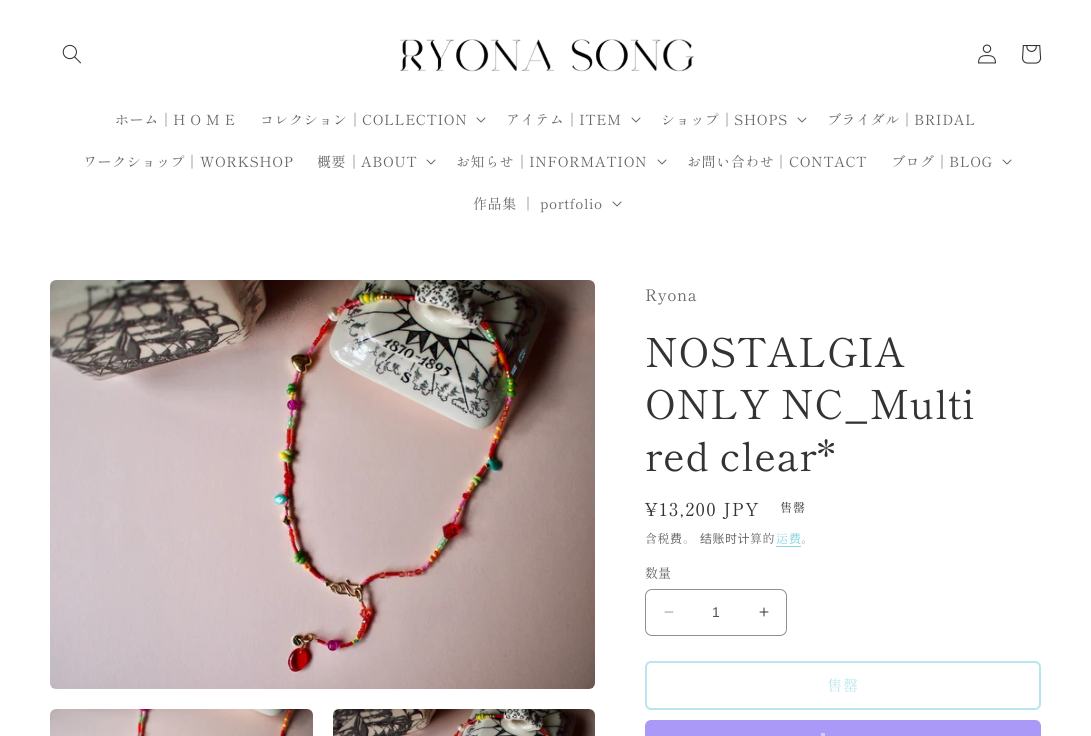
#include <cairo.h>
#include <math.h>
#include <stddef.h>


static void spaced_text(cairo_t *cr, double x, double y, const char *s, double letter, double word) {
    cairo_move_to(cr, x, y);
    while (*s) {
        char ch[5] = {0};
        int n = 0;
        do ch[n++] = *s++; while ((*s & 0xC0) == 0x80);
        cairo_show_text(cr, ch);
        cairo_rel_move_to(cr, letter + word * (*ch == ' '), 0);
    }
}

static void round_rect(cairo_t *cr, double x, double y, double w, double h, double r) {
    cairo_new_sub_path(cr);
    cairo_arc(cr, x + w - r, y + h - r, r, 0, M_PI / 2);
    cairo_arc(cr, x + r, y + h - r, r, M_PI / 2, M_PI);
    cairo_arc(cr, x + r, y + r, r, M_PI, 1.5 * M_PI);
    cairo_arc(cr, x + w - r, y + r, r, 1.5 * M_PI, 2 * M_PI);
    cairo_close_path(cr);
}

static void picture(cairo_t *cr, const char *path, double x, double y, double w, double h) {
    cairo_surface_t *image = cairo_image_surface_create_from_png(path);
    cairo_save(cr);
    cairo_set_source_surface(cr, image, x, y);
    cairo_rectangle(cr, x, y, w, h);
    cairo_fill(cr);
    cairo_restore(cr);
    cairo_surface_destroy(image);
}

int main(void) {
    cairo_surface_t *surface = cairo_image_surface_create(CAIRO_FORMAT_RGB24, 1091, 736);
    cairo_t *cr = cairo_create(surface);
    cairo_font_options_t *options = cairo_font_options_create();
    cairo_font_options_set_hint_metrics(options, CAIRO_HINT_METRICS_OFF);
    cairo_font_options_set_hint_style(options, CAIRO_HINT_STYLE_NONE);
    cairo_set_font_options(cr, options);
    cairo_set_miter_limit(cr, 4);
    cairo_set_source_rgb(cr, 1, 1, 1);
    cairo_paint(cr);
    picture(cr, "img1.png", 62, 44, 19, 20);
    picture(cr, "img2.png", 400, 39, 294, 33);
    picture(cr, "img3.png", 978, 44, 18, 20);
    picture(cr, "img4.png", 1022, 45, 20, 19);
    cairo_select_font_face(cr, "Shippori Mincho", CAIRO_FONT_SLANT_NORMAL, CAIRO_FONT_WEIGHT_NORMAL);
    cairo_set_font_size(cr, 14);
    cairo_set_source_rgb(cr, 0.4, 0.4, 0.4);
    spaced_text(cr, 115, 125, "ホーム", 0.6, 0);
    cairo_select_font_face(cr, "Noto Sans CJK SC", CAIRO_FONT_SLANT_NORMAL, CAIRO_FONT_WEIGHT_NORMAL);
    spaced_text(cr, 159, 125, "｜", 0.6, 0);
    cairo_select_font_face(cr, "Shippori Mincho", CAIRO_FONT_SLANT_NORMAL, CAIRO_FONT_WEIGHT_NORMAL);
    spaced_text(cr, 173, 125, "H O M E", 0.6, 0);
    spaced_text(cr, 260, 125, "コレクション", 0.6, 0);
    cairo_select_font_face(cr, "Noto Sans CJK SC", CAIRO_FONT_SLANT_NORMAL, CAIRO_FONT_WEIGHT_NORMAL);
    spaced_text(cr, 348, 125, "｜", 0.6, 0);
    cairo_select_font_face(cr, "Shippori Mincho", CAIRO_FONT_SLANT_NORMAL, CAIRO_FONT_WEIGHT_NORMAL);
    spaced_text(cr, 362, 125, "COLLECTION", 0.6, 0);
    picture(cr, "img5.png", 476, 117, 10, 6);
    spaced_text(cr, 506, 125, "アイテム", 0.6, 0);
    cairo_select_font_face(cr, "Noto Sans CJK SC", CAIRO_FONT_SLANT_NORMAL, CAIRO_FONT_WEIGHT_NORMAL);
    spaced_text(cr, 565, 125, "｜", 0.6, 0);
    cairo_select_font_face(cr, "Shippori Mincho", CAIRO_FONT_SLANT_NORMAL, CAIRO_FONT_WEIGHT_NORMAL);
    spaced_text(cr, 579, 125, "ITEM", 0.6, 0);
    picture(cr, "img5.png", 631, 117, 10, 6);
    spaced_text(cr, 661, 125, "ショップ", 0.6, 0);
    cairo_select_font_face(cr, "Noto Sans CJK SC", CAIRO_FONT_SLANT_NORMAL, CAIRO_FONT_WEIGHT_NORMAL);
    spaced_text(cr, 720, 125, "｜", 0.6, 0);
    cairo_select_font_face(cr, "Shippori Mincho", CAIRO_FONT_SLANT_NORMAL, CAIRO_FONT_WEIGHT_NORMAL);
    spaced_text(cr, 734, 125, "SHOPS", 0.6, 0);
    picture(cr, "img5.png", 797, 117, 10, 6);
    spaced_text(cr, 827, 125, "ブライダル", 0.6, 0);
    cairo_select_font_face(cr, "Noto Sans CJK SC", CAIRO_FONT_SLANT_NORMAL, CAIRO_FONT_WEIGHT_NORMAL);
    spaced_text(cr, 900, 125, "｜", 0.6, 0);
    cairo_select_font_face(cr, "Shippori Mincho", CAIRO_FONT_SLANT_NORMAL, CAIRO_FONT_WEIGHT_NORMAL);
    spaced_text(cr, 914, 125, "BRIDAL", 0.6, 0);
    spaced_text(cr, 83, 167, "ワークショップ", 0.6, 0);
    cairo_select_font_face(cr, "Noto Sans CJK SC", CAIRO_FONT_SLANT_NORMAL, CAIRO_FONT_WEIGHT_NORMAL);
    spaced_text(cr, 185, 167, "｜", 0.6, 0);
    cairo_select_font_face(cr, "Shippori Mincho", CAIRO_FONT_SLANT_NORMAL, CAIRO_FONT_WEIGHT_NORMAL);
    spaced_text(cr, 200, 167, "WORKSHOP", 0.6, 0);
    spaced_text(cr, 317, 167, "概要", 0.6, 0);
    cairo_select_font_face(cr, "Noto Sans CJK SC", CAIRO_FONT_SLANT_NORMAL, CAIRO_FONT_WEIGHT_NORMAL);
    spaced_text(cr, 347, 167, "｜", 0.6, 0);
    cairo_select_font_face(cr, "Shippori Mincho", CAIRO_FONT_SLANT_NORMAL, CAIRO_FONT_WEIGHT_NORMAL);
    spaced_text(cr, 361, 167, "ABOUT", 0.6, 0);
    picture(cr, "img5.png", 426, 159, 10, 6);
    spaced_text(cr, 456, 167, "お知らせ", 0.6, 0);
    cairo_select_font_face(cr, "Noto Sans CJK SC", CAIRO_FONT_SLANT_NORMAL, CAIRO_FONT_WEIGHT_NORMAL);
    spaced_text(cr, 515, 167, "｜", 0.6, 0);
    cairo_select_font_face(cr, "Shippori Mincho", CAIRO_FONT_SLANT_NORMAL, CAIRO_FONT_WEIGHT_NORMAL);
    spaced_text(cr, 529, 167, "INFORMATION", 0.6, 0);
    picture(cr, "img5.png", 657, 159, 10, 6);
    spaced_text(cr, 687, 167, "お問い合わせ", 0.6, 0);
    cairo_select_font_face(cr, "Noto Sans CJK SC", CAIRO_FONT_SLANT_NORMAL, CAIRO_FONT_WEIGHT_NORMAL);
    spaced_text(cr, 774, 167, "｜", 0.6, 0);
    cairo_select_font_face(cr, "Shippori Mincho", CAIRO_FONT_SLANT_NORMAL, CAIRO_FONT_WEIGHT_NORMAL);
    spaced_text(cr, 789, 167, "CONTACT", 0.6, 0);
    spaced_text(cr, 891, 167, "ブログ", 0.6, 0);
    cairo_select_font_face(cr, "Noto Sans CJK SC", CAIRO_FONT_SLANT_NORMAL, CAIRO_FONT_WEIGHT_NORMAL);
    spaced_text(cr, 935, 167, "｜", 0.6, 0);
    cairo_select_font_face(cr, "Shippori Mincho", CAIRO_FONT_SLANT_NORMAL, CAIRO_FONT_WEIGHT_NORMAL);
    spaced_text(cr, 949, 167, "BLOG", 0.6, 0);
    picture(cr, "img5.png", 1002, 159, 10, 6);
    spaced_text(cr, 473, 209, "作品集", 0.6, 0);
    cairo_select_font_face(cr, "Noto Sans CJK SC", CAIRO_FONT_SLANT_NORMAL, CAIRO_FONT_WEIGHT_NORMAL);
    spaced_text(cr, 521, 209, "｜", 0.6, 0);
    cairo_select_font_face(cr, "Shippori Mincho", CAIRO_FONT_SLANT_NORMAL, CAIRO_FONT_WEIGHT_NORMAL);
    spaced_text(cr, 540, 209, "portfolio", 0.6, 0);
    picture(cr, "img5.png", 612, 201, 10, 6);
    picture(cr, "img6.png", 50, 280, 545, 409);
    picture(cr, "img7.png", 50, 709, 263, 27);
    picture(cr, "img8.png", 333, 709, 262, 27);
    cairo_set_font_size(cr, 16);
    spaced_text(cr, 645, 301, "Ryona", 0.6, 0);
    cairo_set_font_size(cr, 40);
    cairo_set_source_rgb(cr, 0.2, 0.2, 0.2);
    spaced_text(cr, 645, 367, "NOSTALGIA", 0.6, 0);
    spaced_text(cr, 645, 419, "ONLY NC_Multi", 0.6, 0);
    spaced_text(cr, 645, 471, "red clear*", 0.6, 0);
    cairo_set_font_size(cr, 18);
    spaced_text(cr, 645, 516, "¥13,200 JPY", 1.25, 0);
    cairo_set_font_size(cr, 12);
    spaced_text(cr, 780, 512, "售罄", 1, 0);
    cairo_set_source_rgb(cr, 0.4, 0.4, 0.4);
    spaced_text(cr, 645, 543, "含税", 0.5, 0);
    cairo_select_font_face(cr, "Noto Sans CJK SC", CAIRO_FONT_SLANT_NORMAL, CAIRO_FONT_WEIGHT_NORMAL);
    spaced_text(cr, 670, 543, "费", 0.5, 0);
    cairo_select_font_face(cr, "Shippori Mincho", CAIRO_FONT_SLANT_NORMAL, CAIRO_FONT_WEIGHT_NORMAL);
    spaced_text(cr, 683, 543, "。", 0.5, 0);
    cairo_select_font_face(cr, "Noto Sans CJK SC", CAIRO_FONT_SLANT_NORMAL, CAIRO_FONT_WEIGHT_NORMAL);
    spaced_text(cr, 700, 543, "结账时计", 0.5, 0);
    cairo_select_font_face(cr, "Shippori Mincho", CAIRO_FONT_SLANT_NORMAL, CAIRO_FONT_WEIGHT_NORMAL);
    spaced_text(cr, 750, 543, "算的", 0.5, 0);
    cairo_set_source_rgb(cr, 0.533, 0.831, 0.878);
    spaced_text(cr, 776, 543, "运", 0.5, 0);
    cairo_rectangle(cr, 776, 546, 25, 1);
    cairo_fill(cr);
    cairo_select_font_face(cr, "Noto Sans CJK SC", CAIRO_FONT_SLANT_NORMAL, CAIRO_FONT_WEIGHT_NORMAL);
    spaced_text(cr, 789, 543, "费", 0.5, 0);
    cairo_select_font_face(cr, "Shippori Mincho", CAIRO_FONT_SLANT_NORMAL, CAIRO_FONT_WEIGHT_NORMAL);
    cairo_set_source_rgb(cr, 0.4, 0.4, 0.4);
    spaced_text(cr, 801, 543, "。", 0.5, 0);
    cairo_set_font_size(cr, 13);
    cairo_move_to(cr, 645, 578);
    cairo_show_text(cr, "数量");
    picture(cr, "img9.png", 664, 611, 10, 2);
    picture(cr, "img10.png", 759, 607, 10, 10);
    round_rect(cr, 645.5, 589.5, 141, 46, 6.5);
    cairo_set_source_rgb(cr, 0.561, 0.561, 0.561);
    cairo_set_line_width(cr, 1);
    cairo_stroke(cr);
    cairo_select_font_face(cr, "Liberation Sans", CAIRO_FONT_SLANT_NORMAL, CAIRO_FONT_WEIGHT_NORMAL);
    cairo_set_font_size(cr, 14);
    cairo_set_source_rgb(cr, 0.322, 0.322, 0.322);
    cairo_move_to(cr, 712, 617);
    cairo_show_text(cr, "1");
    round_rect(cr, 646, 662, 394, 47, 5);
    cairo_set_source_rgb(cr, 0.725, 0.902, 0.929);
    cairo_set_line_width(cr, 2);
    cairo_stroke(cr);
    cairo_select_font_face(cr, "Shippori Mincho", CAIRO_FONT_SLANT_NORMAL, CAIRO_FONT_WEIGHT_NORMAL);
    cairo_set_font_size(cr, 15);
    spaced_text(cr, 827, 691, "售罄", 1, 0);
    cairo_set_source_rgb(cr, 0.667, 0.6, 0.961);
    round_rect(cr, 645, 720, 396, 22, 6);
    cairo_fill(cr);
    cairo_set_source_rgb(cr, 0.835, 0.8, 0.98);
    cairo_rectangle(cr, 821, 733, 4, 3);
    cairo_fill(cr);
    cairo_surface_write_to_png(surface, "page.png");
    cairo_font_options_destroy(options);
    cairo_destroy(cr);
    cairo_surface_destroy(surface);
    return 0;
}
